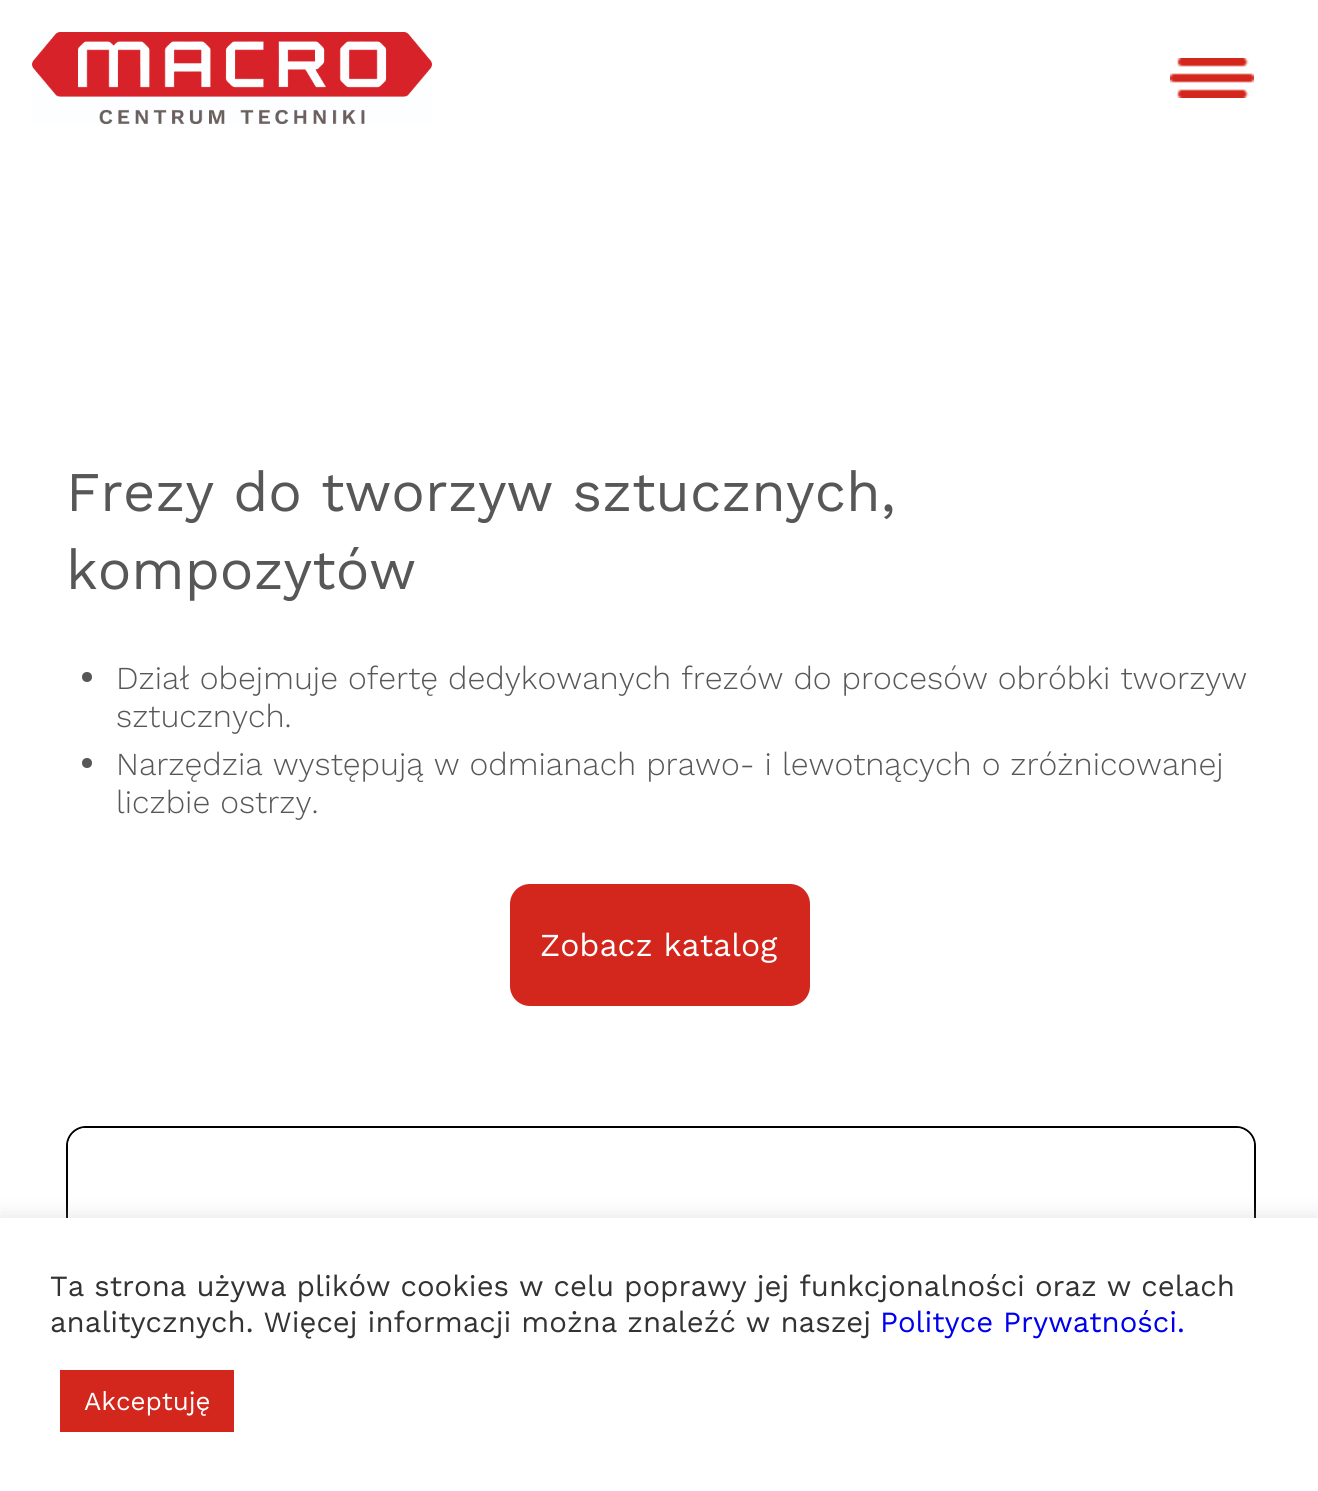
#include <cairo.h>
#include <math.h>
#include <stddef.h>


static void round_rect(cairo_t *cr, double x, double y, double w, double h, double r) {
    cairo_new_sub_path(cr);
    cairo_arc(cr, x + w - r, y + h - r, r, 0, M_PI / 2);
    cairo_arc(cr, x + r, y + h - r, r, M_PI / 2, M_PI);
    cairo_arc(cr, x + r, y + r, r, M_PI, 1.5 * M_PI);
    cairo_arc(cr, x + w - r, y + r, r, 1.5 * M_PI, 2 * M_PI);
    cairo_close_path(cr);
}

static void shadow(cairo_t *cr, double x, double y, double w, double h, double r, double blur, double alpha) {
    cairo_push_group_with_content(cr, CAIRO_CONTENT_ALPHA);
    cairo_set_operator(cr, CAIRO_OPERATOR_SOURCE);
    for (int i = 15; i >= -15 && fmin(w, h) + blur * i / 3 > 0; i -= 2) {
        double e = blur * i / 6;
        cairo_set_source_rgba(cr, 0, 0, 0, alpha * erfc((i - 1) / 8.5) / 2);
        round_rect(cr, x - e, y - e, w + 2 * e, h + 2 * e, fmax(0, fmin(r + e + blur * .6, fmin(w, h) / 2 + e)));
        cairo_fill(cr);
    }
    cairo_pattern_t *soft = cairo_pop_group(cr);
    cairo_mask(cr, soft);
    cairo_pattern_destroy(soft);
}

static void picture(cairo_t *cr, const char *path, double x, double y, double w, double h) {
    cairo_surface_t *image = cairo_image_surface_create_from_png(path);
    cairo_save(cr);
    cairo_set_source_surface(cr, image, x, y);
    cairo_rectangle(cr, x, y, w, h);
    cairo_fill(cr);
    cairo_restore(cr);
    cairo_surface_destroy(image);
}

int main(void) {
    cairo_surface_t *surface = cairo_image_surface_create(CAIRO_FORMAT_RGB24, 1318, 1491);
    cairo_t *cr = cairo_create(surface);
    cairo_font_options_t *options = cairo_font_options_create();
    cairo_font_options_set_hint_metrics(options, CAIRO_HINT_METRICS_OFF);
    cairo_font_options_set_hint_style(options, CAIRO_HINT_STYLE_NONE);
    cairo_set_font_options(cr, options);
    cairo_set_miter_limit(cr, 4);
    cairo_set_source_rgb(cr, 1, 1, 1);
    cairo_paint(cr);
    picture(cr, "img1.png", 32, 32, 400, 92);
    picture(cr, "img2.png", 1170, 58, 84, 40);
    cairo_select_font_face(cr, "Work Sans", CAIRO_FONT_SLANT_NORMAL, CAIRO_FONT_WEIGHT_NORMAL);
    cairo_set_font_size(cr, 56);
    cairo_set_source_rgb(cr, 0.341, 0.341, 0.341);
    cairo_move_to(cr, 66, 511);
    cairo_show_text(cr, "Frezy do tworzyw sztucznych,");
    cairo_move_to(cr, 66, 589);
    cairo_show_text(cr, "kompozytów");
    cairo_new_path(cr);
    cairo_arc(cr, 87, 677, 5, 0, 2 * M_PI);
    cairo_fill(cr);
    cairo_select_font_face(cr, "Work Sans Light", CAIRO_FONT_SLANT_NORMAL, CAIRO_FONT_WEIGHT_NORMAL);
    cairo_set_font_size(cr, 32);
    cairo_move_to(cr, 116, 689);
    cairo_show_text(cr, "Dział obejmuje ofertę dedykowanych frezów do procesów obróbki tworzyw");
    cairo_move_to(cr, 116, 727);
    cairo_show_text(cr, "sztucznych.");
    cairo_new_path(cr);
    cairo_arc(cr, 87, 763, 5, 0, 2 * M_PI);
    cairo_fill(cr);
    cairo_move_to(cr, 116, 775);
    cairo_show_text(cr, "Narzędzia występują w odmianach prawo- i lewotnących o zróżnicowanej");
    cairo_move_to(cr, 116, 813);
    cairo_show_text(cr, "liczbie ostrzy.");
    cairo_set_source_rgb(cr, 0.827, 0.153, 0.114);
    round_rect(cr, 510, 884, 300, 122, 20);
    cairo_fill(cr);
    cairo_select_font_face(cr, "Work Sans", CAIRO_FONT_SLANT_NORMAL, CAIRO_FONT_WEIGHT_NORMAL);
    cairo_set_source_rgb(cr, 1, 1, 1);
    cairo_move_to(cr, 540, 956);
    cairo_show_text(cr, "Zobacz katalog");
    round_rect(cr, 67, 1127, 1188, 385, 19);
    cairo_set_source_rgb(cr, 0, 0, 0);
    cairo_stroke(cr);
    picture(cr, "img3.png", 68, 1128, 1186, 90);
    cairo_set_source_rgb(cr, 0.675, 0.671, 0.671);
    shadow(cr, 0, 1216, 1318, 274, 0, 10, 0.3);
    cairo_set_source_rgb(cr, 1, 1, 1);
    cairo_rectangle(cr, 0, 1218, 1318, 273);
    cairo_fill(cr);
    cairo_set_font_size(cr, 29.35);
    cairo_set_source_rgb(cr, 0.2, 0.2, 0.2);
    cairo_move_to(cr, 50, 1296);
    cairo_show_text(cr, "Ta strona używa plików cookies w celu poprawy jej funkcjonalności oraz w celach");
    cairo_move_to(cr, 50, 1332);
    cairo_show_text(cr, "analitycznych. Więcej informacji można znaleźć w naszej");
    cairo_set_source_rgb(cr, 0, 0, 0.933);
    cairo_move_to(cr, 880, 1332);
    cairo_show_text(cr, "Polityce Prywatności.");
    cairo_set_source_rgb(cr, 0.827, 0.153, 0.114);
    cairo_rectangle(cr, 60, 1370, 174, 62);
    cairo_fill(cr);
    cairo_set_font_size(cr, 26);
    cairo_set_source_rgb(cr, 1, 1, 1);
    cairo_move_to(cr, 84, 1410);
    cairo_show_text(cr, "Akceptuję");
    cairo_surface_write_to_png(surface, "page.png");
    cairo_font_options_destroy(options);
    cairo_destroy(cr);
    cairo_surface_destroy(surface);
    return 0;
}
